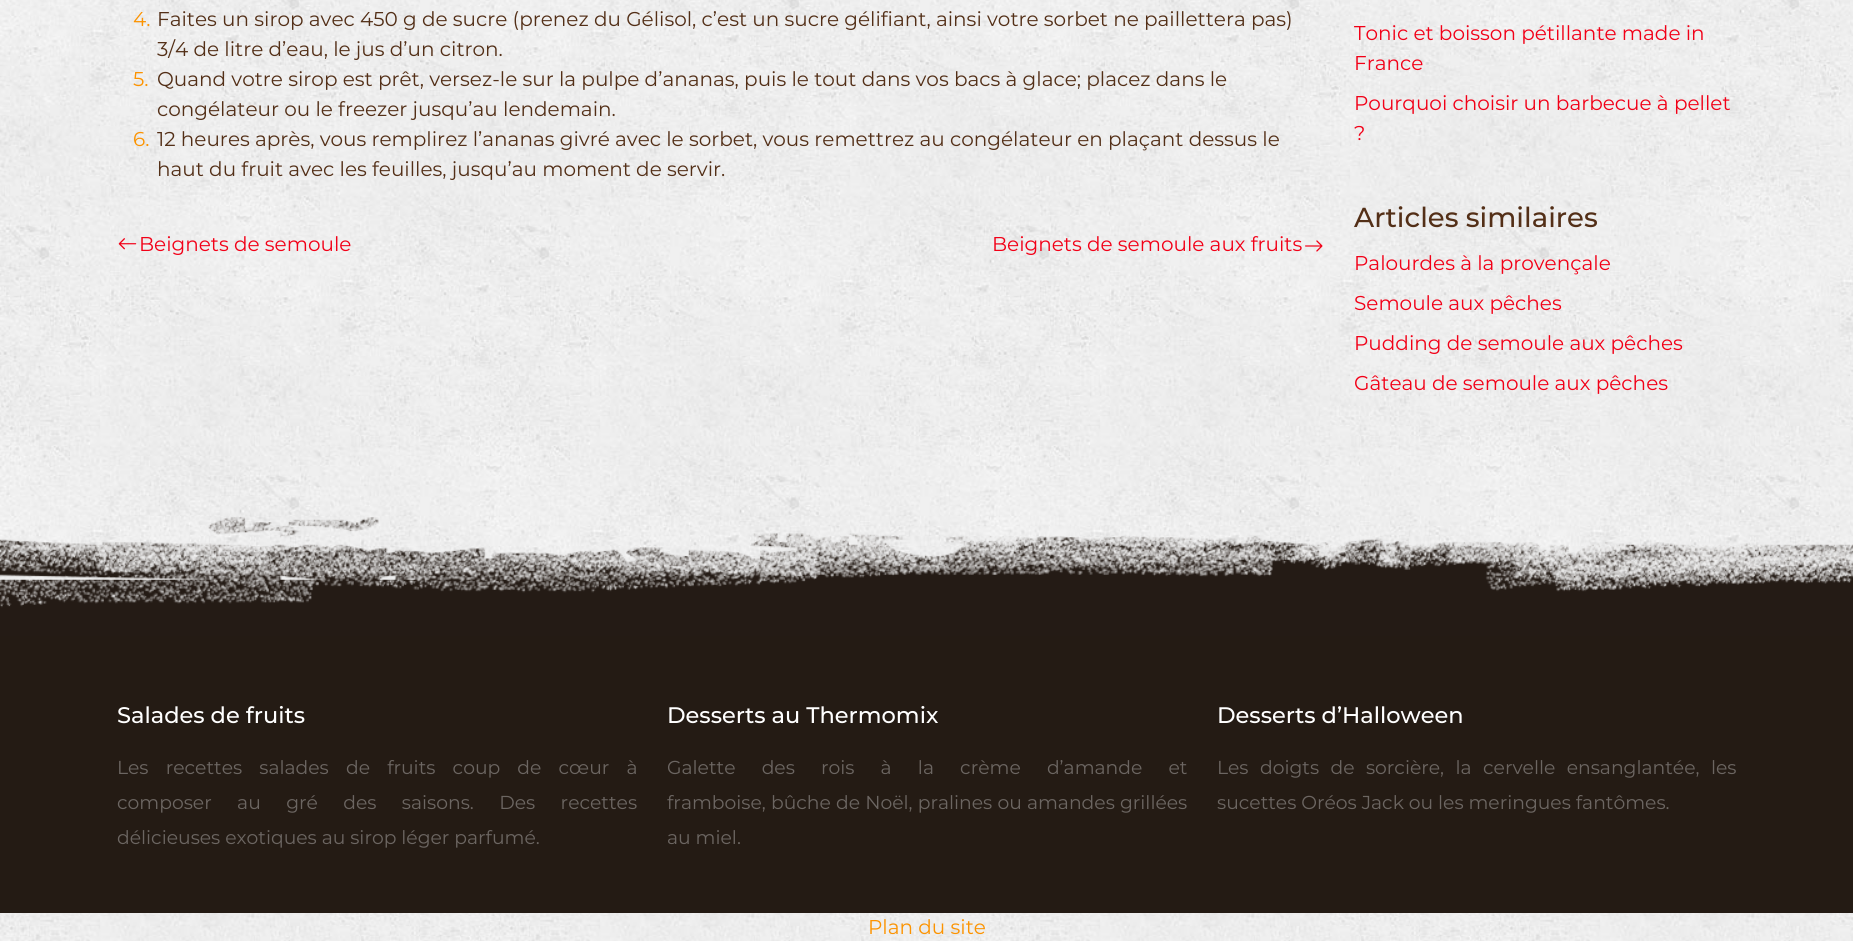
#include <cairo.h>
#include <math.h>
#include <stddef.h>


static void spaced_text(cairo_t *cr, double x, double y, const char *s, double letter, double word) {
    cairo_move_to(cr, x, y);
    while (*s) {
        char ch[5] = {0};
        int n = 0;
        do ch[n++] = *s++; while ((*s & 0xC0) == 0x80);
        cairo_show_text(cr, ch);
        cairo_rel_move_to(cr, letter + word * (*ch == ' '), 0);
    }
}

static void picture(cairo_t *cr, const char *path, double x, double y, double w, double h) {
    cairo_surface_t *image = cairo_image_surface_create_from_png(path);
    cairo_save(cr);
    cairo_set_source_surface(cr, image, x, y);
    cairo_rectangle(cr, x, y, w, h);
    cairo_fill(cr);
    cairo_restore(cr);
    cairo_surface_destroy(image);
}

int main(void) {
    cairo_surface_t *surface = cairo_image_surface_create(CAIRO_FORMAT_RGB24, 1853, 941);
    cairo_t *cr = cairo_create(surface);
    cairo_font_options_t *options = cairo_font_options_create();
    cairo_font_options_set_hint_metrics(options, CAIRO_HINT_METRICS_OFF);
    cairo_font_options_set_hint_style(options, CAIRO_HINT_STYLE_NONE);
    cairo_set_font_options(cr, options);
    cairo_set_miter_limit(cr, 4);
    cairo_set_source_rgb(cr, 1, 1, 1);
    cairo_paint(cr);
    picture(cr, "img1.png", 0, 0, 1853, 941);
    cairo_select_font_face(cr, "Montserrat", CAIRO_FONT_SLANT_NORMAL, CAIRO_FONT_WEIGHT_NORMAL);
    cairo_set_font_size(cr, 20);
    cairo_set_source_rgb(cr, 0.988, 0.576, 0);
    cairo_move_to(cr, 133, 26);
    cairo_show_text(cr, "4.");
    cairo_set_source_rgb(cr, 0.325, 0.184, 0.09);
    cairo_move_to(cr, 157, 26);
    cairo_show_text(cr, "Faites un sirop avec 450 g de sucre (prenez du Gélisol, c’est un sucre gélifiant, ainsi votre sorbet ne paillettera pas)");
    cairo_move_to(cr, 157, 56);
    cairo_show_text(cr, "3/4 de litre d’eau, le jus d’un citron.");
    cairo_set_source_rgb(cr, 0.988, 0.576, 0);
    cairo_move_to(cr, 133, 86);
    cairo_show_text(cr, "5.");
    cairo_set_source_rgb(cr, 0.325, 0.184, 0.09);
    cairo_move_to(cr, 157, 86);
    cairo_show_text(cr, "Quand votre sirop est prêt, versez-le sur la pulpe d’ananas, puis le tout dans vos bacs à glace; placez dans le");
    cairo_move_to(cr, 157, 116);
    cairo_show_text(cr, "congélateur ou le freezer jusqu’au lendemain.");
    cairo_set_source_rgb(cr, 0.988, 0.576, 0);
    cairo_move_to(cr, 133, 146);
    cairo_show_text(cr, "6.");
    cairo_set_source_rgb(cr, 0.325, 0.184, 0.09);
    cairo_move_to(cr, 157, 146);
    cairo_show_text(cr, "12 heures après, vous remplirez l’ananas givré avec le sorbet, vous remettrez au congélateur en plaçant dessus le");
    cairo_move_to(cr, 157, 176);
    cairo_show_text(cr, "haut du fruit avec les feuilles, jusqu’au moment de servir.");
    picture(cr, "img2.png", 118, 238, 19, 12);
    cairo_set_source_rgb(cr, 0.949, 0, 0.09);
    cairo_move_to(cr, 139, 251);
    cairo_show_text(cr, "Beignets de semoule");
    cairo_move_to(cr, 992, 251);
    cairo_show_text(cr, "Beignets de semoule aux fruits");
    picture(cr, "img3.png", 1305, 240, 18, 12);
    cairo_move_to(cr, 1354, 40);
    cairo_show_text(cr, "Tonic et boisson pétillante made in");
    cairo_move_to(cr, 1354, 70);
    cairo_show_text(cr, "France");
    cairo_move_to(cr, 1354, 110);
    cairo_show_text(cr, "Pourquoi choisir un barbecue à pellet");
    cairo_move_to(cr, 1354, 140);
    cairo_show_text(cr, "?");
    cairo_select_font_face(cr, "Montserrat Medium", CAIRO_FONT_SLANT_NORMAL, CAIRO_FONT_WEIGHT_NORMAL);
    cairo_set_font_size(cr, 27.5);
    cairo_set_source_rgb(cr, 0.325, 0.184, 0.09);
    cairo_move_to(cr, 1354, 227);
    cairo_show_text(cr, "Articles similaires");
    cairo_select_font_face(cr, "Montserrat", CAIRO_FONT_SLANT_NORMAL, CAIRO_FONT_WEIGHT_NORMAL);
    cairo_set_font_size(cr, 20);
    cairo_set_source_rgb(cr, 0.949, 0, 0.09);
    cairo_move_to(cr, 1354, 270);
    cairo_show_text(cr, "Palourdes à la provençale");
    cairo_move_to(cr, 1354, 310);
    cairo_show_text(cr, "Semoule aux pêches");
    cairo_move_to(cr, 1354, 350);
    cairo_show_text(cr, "Pudding de semoule aux pêches");
    cairo_move_to(cr, 1354, 390);
    cairo_show_text(cr, "Gâteau de semoule aux pêches");
    cairo_set_source_rgb(cr, 0.141, 0.106, 0.082);
    cairo_rectangle(cr, 0, 636, 1853, 277);
    cairo_fill(cr);
    picture(cr, "img4.png", 0, 517, 1853, 119);
    cairo_select_font_face(cr, "Montserrat Medium", CAIRO_FONT_SLANT_NORMAL, CAIRO_FONT_WEIGHT_NORMAL);
    cairo_set_font_size(cr, 22.5);
    cairo_set_source_rgb(cr, 1, 1, 1);
    cairo_move_to(cr, 117, 723);
    cairo_show_text(cr, "Salades de fruits");
    cairo_select_font_face(cr, "Montserrat", CAIRO_FONT_SLANT_NORMAL, CAIRO_FONT_WEIGHT_NORMAL);
    cairo_set_font_size(cr, 18.75);
    cairo_set_source_rgb(cr, 0.424, 0.4, 0.384);
    spaced_text(cr, 117, 774, "Les recettes salades de fruits coup de cœur à", 0, 12.25);
    spaced_text(cr, 117, 809, "composer au gré des saisons. Des recettes", 0, 20.5);
    cairo_move_to(cr, 117, 844);
    cairo_show_text(cr, "délicieuses exotiques au sirop léger parfumé.");
    cairo_select_font_face(cr, "Montserrat Medium", CAIRO_FONT_SLANT_NORMAL, CAIRO_FONT_WEIGHT_NORMAL);
    cairo_set_font_size(cr, 22.5);
    cairo_set_source_rgb(cr, 1, 1, 1);
    cairo_move_to(cr, 667, 723);
    cairo_show_text(cr, "Desserts au Thermomix");
    cairo_select_font_face(cr, "Montserrat", CAIRO_FONT_SLANT_NORMAL, CAIRO_FONT_WEIGHT_NORMAL);
    cairo_set_font_size(cr, 18.75);
    cairo_set_source_rgb(cr, 0.424, 0.4, 0.384);
    spaced_text(cr, 667, 774, "Galette des rois à la crème d’amande et", 0, 21.25);
    spaced_text(cr, 667, 809, "framboise, bûche de Noël, pralines ou amandes grillées", 0, 0.25);
    cairo_move_to(cr, 667, 844);
    cairo_show_text(cr, "au miel.");
    cairo_select_font_face(cr, "Montserrat Medium", CAIRO_FONT_SLANT_NORMAL, CAIRO_FONT_WEIGHT_NORMAL);
    cairo_set_font_size(cr, 22.5);
    cairo_set_source_rgb(cr, 1, 1, 1);
    cairo_move_to(cr, 1217, 723);
    cairo_show_text(cr, "Desserts d’Halloween");
    cairo_select_font_face(cr, "Montserrat", CAIRO_FONT_SLANT_NORMAL, CAIRO_FONT_WEIGHT_NORMAL);
    cairo_set_font_size(cr, 18.75);
    cairo_set_source_rgb(cr, 0.424, 0.4, 0.384);
    spaced_text(cr, 1217, 774, "Les doigts de sorcière, la cervelle ensanglantée, les", 0, 6.5);
    cairo_move_to(cr, 1217, 809);
    cairo_show_text(cr, "sucettes Oréos Jack ou les meringues fantômes.");
    cairo_set_font_size(cr, 20);
    cairo_set_source_rgb(cr, 0.988, 0.576, 0);
    cairo_move_to(cr, 868, 934);
    cairo_show_text(cr, "Plan du site");
    cairo_surface_write_to_png(surface, "page.png");
    cairo_font_options_destroy(options);
    cairo_destroy(cr);
    cairo_surface_destroy(surface);
    return 0;
}
